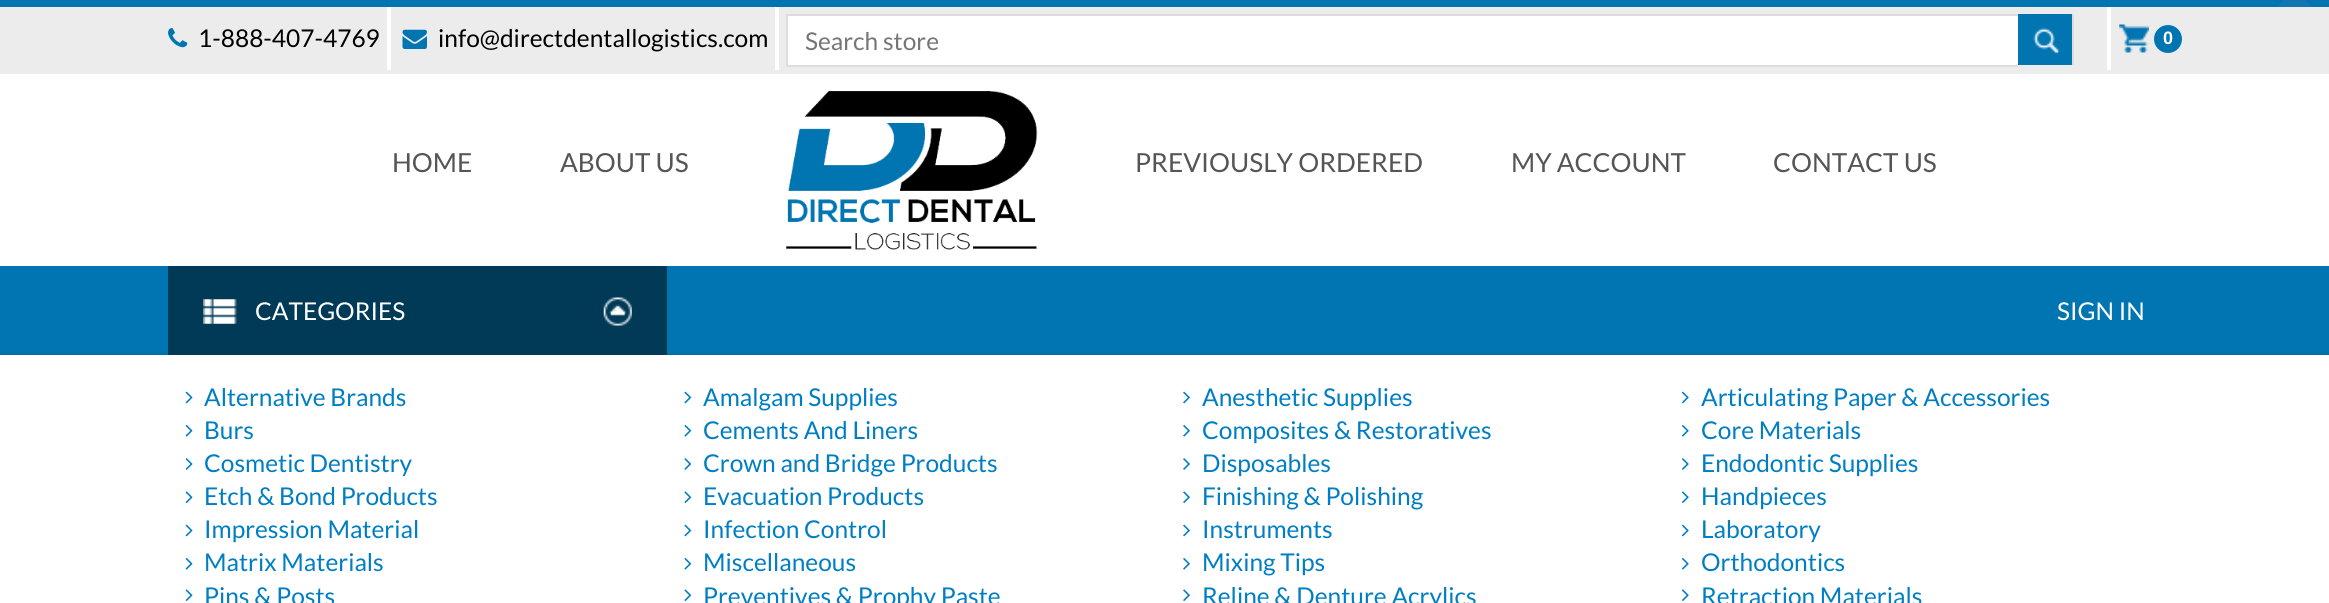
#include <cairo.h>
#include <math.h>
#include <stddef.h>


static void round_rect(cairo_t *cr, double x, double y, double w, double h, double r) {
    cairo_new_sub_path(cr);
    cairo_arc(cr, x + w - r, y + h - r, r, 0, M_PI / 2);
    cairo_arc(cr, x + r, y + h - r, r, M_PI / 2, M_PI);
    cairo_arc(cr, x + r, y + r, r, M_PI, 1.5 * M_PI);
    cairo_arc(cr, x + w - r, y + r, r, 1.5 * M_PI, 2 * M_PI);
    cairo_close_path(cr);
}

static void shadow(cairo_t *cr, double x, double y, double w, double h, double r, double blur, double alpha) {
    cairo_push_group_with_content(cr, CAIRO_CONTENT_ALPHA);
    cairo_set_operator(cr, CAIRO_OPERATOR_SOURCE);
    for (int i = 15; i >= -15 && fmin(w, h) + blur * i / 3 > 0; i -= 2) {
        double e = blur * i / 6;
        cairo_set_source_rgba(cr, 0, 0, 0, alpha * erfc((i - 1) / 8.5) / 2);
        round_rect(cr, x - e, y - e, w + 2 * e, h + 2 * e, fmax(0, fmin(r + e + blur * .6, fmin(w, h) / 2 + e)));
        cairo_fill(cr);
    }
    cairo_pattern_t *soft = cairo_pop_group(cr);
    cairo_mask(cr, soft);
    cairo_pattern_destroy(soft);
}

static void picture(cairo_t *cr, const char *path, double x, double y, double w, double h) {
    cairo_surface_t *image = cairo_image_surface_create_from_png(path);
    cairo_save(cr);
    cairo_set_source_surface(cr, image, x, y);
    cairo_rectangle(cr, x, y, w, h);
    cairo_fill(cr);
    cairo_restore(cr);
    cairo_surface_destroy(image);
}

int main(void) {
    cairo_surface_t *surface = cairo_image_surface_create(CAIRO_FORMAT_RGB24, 2329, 603);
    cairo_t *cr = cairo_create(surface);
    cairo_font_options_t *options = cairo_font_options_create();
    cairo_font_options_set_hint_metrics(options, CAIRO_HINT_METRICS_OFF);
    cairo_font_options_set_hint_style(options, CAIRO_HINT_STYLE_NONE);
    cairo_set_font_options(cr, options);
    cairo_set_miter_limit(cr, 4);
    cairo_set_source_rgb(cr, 1, 1, 1);
    cairo_paint(cr);
    cairo_set_source_rgb(cr, 0.922, 0.922, 0.922);
    cairo_rectangle(cr, 0, 7, 2329, 67);
    cairo_fill(cr);
    cairo_set_source_rgb(cr, 0, 0.459, 0.698);
    cairo_rectangle(cr, 0, 0, 2329, 7);
    cairo_fill(cr);
    cairo_set_source_rgb(cr, 1, 1, 1);
    cairo_rectangle(cr, 387, 7, 4, 63);
    cairo_fill(cr);
    picture(cr, "img1.png", 168, 28, 20, 20);
    cairo_select_font_face(cr, "Lato", CAIRO_FONT_SLANT_NORMAL, CAIRO_FONT_WEIGHT_NORMAL);
    cairo_set_font_size(cr, 24.5);
    cairo_set_source_rgb(cr, 0, 0, 0);
    cairo_move_to(cr, 198, 47);
    cairo_show_text(cr, "1-888-407-4769");
    cairo_set_source_rgb(cr, 1, 1, 1);
    cairo_rectangle(cr, 775, 7, 4, 63);
    cairo_fill(cr);
    picture(cr, "img2.png", 402, 29, 25, 20);
    cairo_set_source_rgb(cr, 0, 0, 0);
    cairo_move_to(cr, 438, 47);
    cairo_show_text(cr, "info@directdentallogistics.com");
    cairo_set_source_rgb(cr, 0.067, 0.459, 0.686);
    cairo_new_path(cr);
    cairo_move_to(cr, 2312, 7);
    cairo_line_to(cr, 2277, 7);
    cairo_line_to(cr, 2294, -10.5);
    cairo_close_path(cr);
    cairo_fill(cr);
    cairo_set_source_rgb(cr, 1, 1, 1);
    cairo_rectangle(cr, 788, 16, 1230, 49);
    cairo_fill(cr);
    cairo_set_source_rgb(cr, 0.867, 0.867, 0.867);
    cairo_rectangle(cr, 786, 14, 1232, 2);
    cairo_fill(cr);
    cairo_rectangle(cr, 786, 65, 1232, 2);
    cairo_fill(cr);
    cairo_rectangle(cr, 786, 14, 2, 53);
    cairo_fill(cr);
    cairo_set_source_rgb(cr, 0.459, 0.459, 0.459);
    cairo_move_to(cr, 805, 50);
    cairo_show_text(cr, "Search store");
    cairo_set_source_rgb(cr, 0, 0.459, 0.698);
    cairo_rectangle(cr, 2018, 14, 54, 51);
    cairo_fill(cr);
    picture(cr, "img3.png", 2033, 27, 27, 27);
    cairo_set_source_rgb(cr, 0.867, 0.867, 0.867);
    cairo_rectangle(cr, 2072, 14, 2, 51);
    cairo_fill(cr);
    cairo_set_source_rgb(cr, 1, 1, 1);
    cairo_rectangle(cr, 2107, 7, 4, 63);
    cairo_fill(cr);
    picture(cr, "img4.png", 2119, 24, 30, 29);
    cairo_set_source_rgb(cr, 0, 0.459, 0.698);
    cairo_arc(cr, 2168, 39, 14, 0, 2 * M_PI);
    cairo_fill(cr);
    cairo_select_font_face(cr, "Liberation Sans", CAIRO_FONT_SLANT_NORMAL, CAIRO_FONT_WEIGHT_BOLD);
    cairo_set_font_size(cr, 18);
    cairo_set_source_rgb(cr, 1, 1, 1);
    cairo_move_to(cr, 2163, 44);
    cairo_show_text(cr, "0");
    cairo_select_font_face(cr, "Lato", CAIRO_FONT_SLANT_NORMAL, CAIRO_FONT_WEIGHT_NORMAL);
    cairo_set_font_size(cr, 26.25);
    cairo_set_source_rgb(cr, 0.333, 0.333, 0.333);
    cairo_move_to(cr, 392, 172);
    cairo_show_text(cr, "HOME");
    cairo_move_to(cr, 560, 172);
    cairo_show_text(cr, "ABOUT US");
    picture(cr, "img5.png", 786, 91, 252, 159);
    cairo_move_to(cr, 1135, 172);
    cairo_show_text(cr, "PREVIOUSLY ORDERED");
    cairo_move_to(cr, 1511, 172);
    cairo_show_text(cr, "MY ACCOUNT");
    cairo_move_to(cr, 1773, 172);
    cairo_show_text(cr, "CONTACT US");
    cairo_set_source_rgb(cr, 0, 0.459, 0.698);
    cairo_rectangle(cr, 0, 266, 2329, 89);
    cairo_fill(cr);
    cairo_set_source_rgb(cr, 0, 0, 0);
    shadow(cr, -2, 355, 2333, 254, 0, 2, 0.15);
    cairo_set_source_rgb(cr, 0, 0.227, 0.341);
    cairo_rectangle(cr, 168, 266, 499, 89);
    cairo_fill(cr);
    picture(cr, "img6.png", 203, 299, 34, 25);
    cairo_set_font_size(cr, 24.5);
    cairo_set_source_rgb(cr, 1, 1, 1);
    cairo_move_to(cr, 255, 320);
    cairo_show_text(cr, "CATEGORIES");
    picture(cr, "img7.png", 603, 297, 29, 29);
    cairo_move_to(cr, 2057, 320);
    cairo_show_text(cr, "SIGN IN");
    cairo_rectangle(cr, 0, 355, 2329, 248);
    cairo_fill(cr);
    picture(cr, "img8.png", 185, 391, 8, 13);
    cairo_set_source_rgb(cr, 0, 0.494, 0.765);
    cairo_move_to(cr, 204, 406);
    cairo_show_text(cr, "Alternative Brands");
    picture(cr, "img9.png", 684, 391, 8, 13);
    cairo_move_to(cr, 703, 406);
    cairo_show_text(cr, "Amalgam Supplies");
    picture(cr, "img10.png", 1183, 391, 7, 13);
    cairo_move_to(cr, 1202, 406);
    cairo_show_text(cr, "Anesthetic Supplies");
    picture(cr, "img11.png", 1681, 391, 8, 13);
    cairo_move_to(cr, 1701, 406);
    cairo_show_text(cr, "Articulating Paper & Accessories");
    picture(cr, "img12.png", 185, 425, 8, 12);
    cairo_move_to(cr, 204, 439);
    cairo_show_text(cr, "Burs");
    picture(cr, "img13.png", 684, 425, 8, 12);
    cairo_move_to(cr, 703, 439);
    cairo_show_text(cr, "Cements And Liners");
    picture(cr, "img14.png", 1183, 425, 7, 12);
    cairo_move_to(cr, 1202, 439);
    cairo_show_text(cr, "Composites & Restoratives");
    picture(cr, "img15.png", 1681, 425, 8, 12);
    cairo_move_to(cr, 1701, 439);
    cairo_show_text(cr, "Core Materials");
    picture(cr, "img16.png", 185, 458, 8, 12);
    cairo_move_to(cr, 204, 472);
    cairo_show_text(cr, "Cosmetic Dentistry");
    picture(cr, "img17.png", 684, 458, 8, 12);
    cairo_move_to(cr, 703, 472);
    cairo_show_text(cr, "Crown and Bridge Products");
    picture(cr, "img18.png", 1183, 458, 7, 12);
    cairo_move_to(cr, 1202, 472);
    cairo_show_text(cr, "Disposables");
    picture(cr, "img19.png", 1682, 458, 7, 12);
    cairo_move_to(cr, 1701, 472);
    cairo_show_text(cr, "Endodontic Supplies");
    picture(cr, "img20.png", 185, 491, 8, 12);
    cairo_move_to(cr, 204, 505);
    cairo_show_text(cr, "Etch & Bond Products");
    picture(cr, "img21.png", 684, 491, 8, 12);
    cairo_move_to(cr, 703, 505);
    cairo_show_text(cr, "Evacuation Products");
    picture(cr, "img22.png", 1183, 491, 7, 12);
    cairo_move_to(cr, 1202, 505);
    cairo_show_text(cr, "Finishing & Polishing");
    picture(cr, "img23.png", 1681, 491, 8, 12);
    cairo_move_to(cr, 1701, 505);
    cairo_show_text(cr, "Handpieces");
    picture(cr, "img8.png", 185, 524, 8, 13);
    cairo_move_to(cr, 204, 538);
    cairo_show_text(cr, "Impression Material");
    picture(cr, "img9.png", 684, 524, 8, 13);
    cairo_move_to(cr, 703, 538);
    cairo_show_text(cr, "Infection Control");
    picture(cr, "img10.png", 1183, 524, 7, 13);
    cairo_move_to(cr, 1202, 538);
    cairo_show_text(cr, "Instruments");
    picture(cr, "img11.png", 1681, 524, 8, 13);
    cairo_move_to(cr, 1701, 538);
    cairo_show_text(cr, "Laboratory");
    picture(cr, "img12.png", 185, 558, 8, 12);
    cairo_move_to(cr, 204, 571);
    cairo_show_text(cr, "Matrix Materials");
    picture(cr, "img13.png", 684, 558, 8, 12);
    cairo_move_to(cr, 703, 571);
    cairo_show_text(cr, "Miscellaneous");
    picture(cr, "img14.png", 1183, 558, 7, 12);
    cairo_move_to(cr, 1202, 571);
    cairo_show_text(cr, "Mixing Tips");
    picture(cr, "img15.png", 1681, 558, 8, 12);
    cairo_move_to(cr, 1701, 571);
    cairo_show_text(cr, "Orthodontics");
    picture(cr, "img20.png", 185, 589, 8, 12);
    cairo_move_to(cr, 204, 605);
    cairo_show_text(cr, "Pins & Posts");
    picture(cr, "img21.png", 684, 589, 8, 12);
    cairo_move_to(cr, 703, 605);
    cairo_show_text(cr, "Preventives & Prophy Paste");
    picture(cr, "img22.png", 1183, 589, 7, 12);
    cairo_move_to(cr, 1202, 605);
    cairo_show_text(cr, "Reline & Denture Acrylics");
    picture(cr, "img23.png", 1681, 589, 8, 12);
    cairo_move_to(cr, 1701, 605);
    cairo_show_text(cr, "Retraction Materials");
    cairo_surface_write_to_png(surface, "page.png");
    cairo_font_options_destroy(options);
    cairo_destroy(cr);
    cairo_surface_destroy(surface);
    return 0;
}
